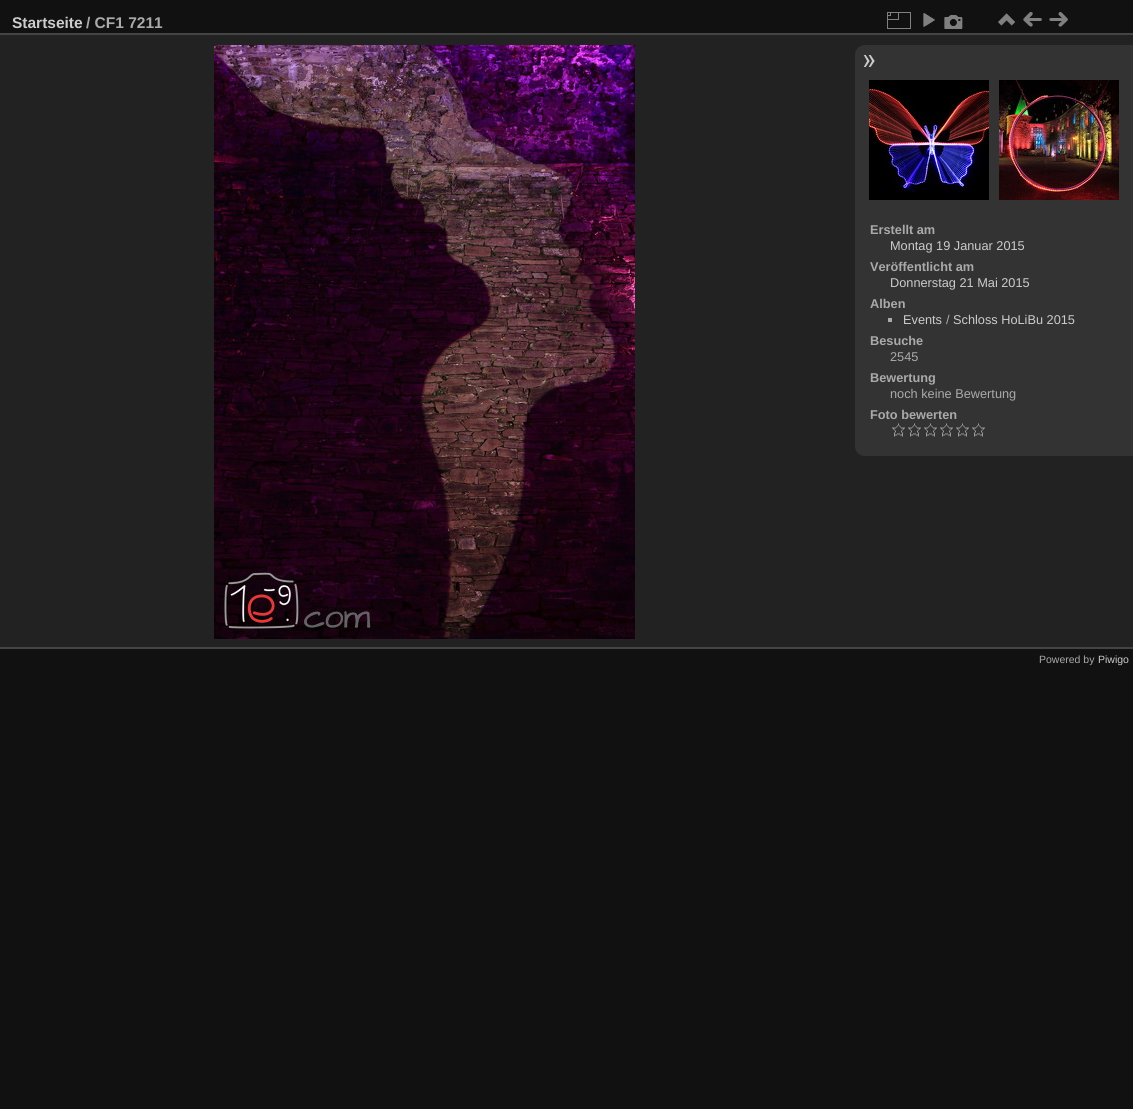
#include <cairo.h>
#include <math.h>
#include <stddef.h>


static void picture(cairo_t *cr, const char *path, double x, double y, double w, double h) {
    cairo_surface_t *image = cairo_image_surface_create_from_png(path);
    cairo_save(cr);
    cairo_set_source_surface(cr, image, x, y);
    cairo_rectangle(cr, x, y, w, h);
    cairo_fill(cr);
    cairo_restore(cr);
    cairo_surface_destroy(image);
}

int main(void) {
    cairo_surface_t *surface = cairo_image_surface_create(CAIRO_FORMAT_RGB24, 1133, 1109);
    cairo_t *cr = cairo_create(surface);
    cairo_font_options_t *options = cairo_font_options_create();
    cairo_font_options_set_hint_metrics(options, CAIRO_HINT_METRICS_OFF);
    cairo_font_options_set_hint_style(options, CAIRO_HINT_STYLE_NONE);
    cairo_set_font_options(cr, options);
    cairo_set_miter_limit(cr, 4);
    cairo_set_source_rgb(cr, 0.067, 0.067, 0.067);
    cairo_paint(cr);
    cairo_set_source_rgb(cr, 0.133, 0.133, 0.133);
    cairo_rectangle(cr, 0, 35, 1133, 612);
    cairo_fill(cr);
    cairo_set_source_rgb(cr, 0.267, 0.267, 0.267);
    cairo_rectangle(cr, 0, 647, 1133, 2);
    cairo_fill(cr);
    cairo_rectangle(cr, 0, 33, 1133, 2);
    cairo_fill(cr);
    cairo_select_font_face(cr, "Liberation Sans", CAIRO_FONT_SLANT_NORMAL, CAIRO_FONT_WEIGHT_BOLD);
    cairo_set_font_size(cr, 15.5);
    cairo_set_source_rgb(cr, 0.8, 0.8, 0.8);
    cairo_move_to(cr, 12, 28);
    cairo_show_text(cr, "Startseite");
    cairo_set_source_rgb(cr, 0.667, 0.667, 0.667);
    cairo_move_to(cr, 86, 28);
    cairo_show_text(cr, "/ CF1 7211");
    picture(cr, "img1.png", 887, 12, 24, 17);
    picture(cr, "img2.png", 923, 13, 12, 14);
    picture(cr, "img3.png", 944, 15, 19, 14);
    picture(cr, "img4.png", 998, 13, 17, 13);
    picture(cr, "img5.png", 1023, 12, 19, 15);
    picture(cr, "img6.png", 1049, 12, 19, 15);
    picture(cr, "img7.png", 214, 45, 421, 594);
    cairo_set_source_rgb(cr, 0.2, 0.2, 0.2);
    cairo_new_path(cr);
    cairo_move_to(cr, 865, 45);
    cairo_line_to(cr, 1133, 45);
    cairo_line_to(cr, 1133, 456);
    cairo_line_to(cr, 865, 456);
    cairo_curve_to(cr, 859.5, 456, 855, 451.5, 855, 446);
    cairo_line_to(cr, 855, 55);
    cairo_curve_to(cr, 855, 49.5, 859.5, 45, 865, 45);
    cairo_close_path(cr);
    cairo_fill(cr);
    picture(cr, "img8.png", 863, 55, 12, 12);
    picture(cr, "img9.png", 869, 80, 120, 120);
    picture(cr, "img10.png", 999, 80, 120, 120);
    cairo_set_font_size(cr, 12.75);
    cairo_set_source_rgb(cr, 0.667, 0.667, 0.667);
    cairo_move_to(cr, 870, 234);
    cairo_show_text(cr, "Erstellt am");
    cairo_select_font_face(cr, "Liberation Sans", CAIRO_FONT_SLANT_NORMAL, CAIRO_FONT_WEIGHT_NORMAL);
    cairo_set_source_rgb(cr, 0.8, 0.8, 0.8);
    cairo_move_to(cr, 890, 250);
    cairo_show_text(cr, "Montag 19 Januar 2015");
    cairo_select_font_face(cr, "Liberation Sans", CAIRO_FONT_SLANT_NORMAL, CAIRO_FONT_WEIGHT_BOLD);
    cairo_set_source_rgb(cr, 0.667, 0.667, 0.667);
    cairo_move_to(cr, 870, 271);
    cairo_show_text(cr, "Veröffentlicht am");
    cairo_select_font_face(cr, "Liberation Sans", CAIRO_FONT_SLANT_NORMAL, CAIRO_FONT_WEIGHT_NORMAL);
    cairo_set_source_rgb(cr, 0.8, 0.8, 0.8);
    cairo_move_to(cr, 890, 287);
    cairo_show_text(cr, "Donnerstag 21 Mai 2015");
    cairo_select_font_face(cr, "Liberation Sans", CAIRO_FONT_SLANT_NORMAL, CAIRO_FONT_WEIGHT_BOLD);
    cairo_set_source_rgb(cr, 0.667, 0.667, 0.667);
    cairo_move_to(cr, 870, 308);
    cairo_show_text(cr, "Alben");
    cairo_rectangle(cr, 888, 318, 4, 4);
    cairo_fill(cr);
    cairo_select_font_face(cr, "Liberation Sans", CAIRO_FONT_SLANT_NORMAL, CAIRO_FONT_WEIGHT_NORMAL);
    cairo_set_source_rgb(cr, 0.8, 0.8, 0.8);
    cairo_move_to(cr, 903, 324);
    cairo_show_text(cr, "Events");
    cairo_set_source_rgb(cr, 0.667, 0.667, 0.667);
    cairo_move_to(cr, 946, 324);
    cairo_show_text(cr, "/");
    cairo_set_source_rgb(cr, 0.8, 0.8, 0.8);
    cairo_move_to(cr, 953, 324);
    cairo_show_text(cr, "Schloss HoLiBu 2015");
    cairo_select_font_face(cr, "Liberation Sans", CAIRO_FONT_SLANT_NORMAL, CAIRO_FONT_WEIGHT_BOLD);
    cairo_set_source_rgb(cr, 0.667, 0.667, 0.667);
    cairo_move_to(cr, 870, 345);
    cairo_show_text(cr, "Besuche");
    cairo_select_font_face(cr, "Liberation Sans", CAIRO_FONT_SLANT_NORMAL, CAIRO_FONT_WEIGHT_NORMAL);
    cairo_move_to(cr, 890, 361);
    cairo_show_text(cr, "2545");
    cairo_select_font_face(cr, "Liberation Sans", CAIRO_FONT_SLANT_NORMAL, CAIRO_FONT_WEIGHT_BOLD);
    cairo_move_to(cr, 870, 382);
    cairo_show_text(cr, "Bewertung");
    cairo_select_font_face(cr, "Liberation Sans", CAIRO_FONT_SLANT_NORMAL, CAIRO_FONT_WEIGHT_NORMAL);
    cairo_move_to(cr, 890, 398);
    cairo_show_text(cr, "noch keine Bewertung");
    cairo_select_font_face(cr, "Liberation Sans", CAIRO_FONT_SLANT_NORMAL, CAIRO_FONT_WEIGHT_BOLD);
    cairo_move_to(cr, 870, 419);
    cairo_show_text(cr, "Foto bewerten");
    picture(cr, "img11.png", 892, 423, 13, 14);
    picture(cr, "img11.png", 908, 423, 13, 14);
    picture(cr, "img11.png", 924, 423, 13, 14);
    picture(cr, "img11.png", 940, 423, 13, 14);
    picture(cr, "img11.png", 956, 423, 13, 14);
    picture(cr, "img11.png", 972, 423, 13, 14);
    cairo_select_font_face(cr, "Liberation Sans", CAIRO_FONT_SLANT_NORMAL, CAIRO_FONT_WEIGHT_NORMAL);
    cairo_set_font_size(cr, 10.5);
    cairo_move_to(cr, 1039, 663);
    cairo_show_text(cr, "Powered by");
    cairo_set_source_rgb(cr, 0.8, 0.8, 0.8);
    cairo_move_to(cr, 1098, 663);
    cairo_show_text(cr, "Piwigo");
    cairo_surface_write_to_png(surface, "page.png");
    cairo_font_options_destroy(options);
    cairo_destroy(cr);
    cairo_surface_destroy(surface);
    return 0;
}
